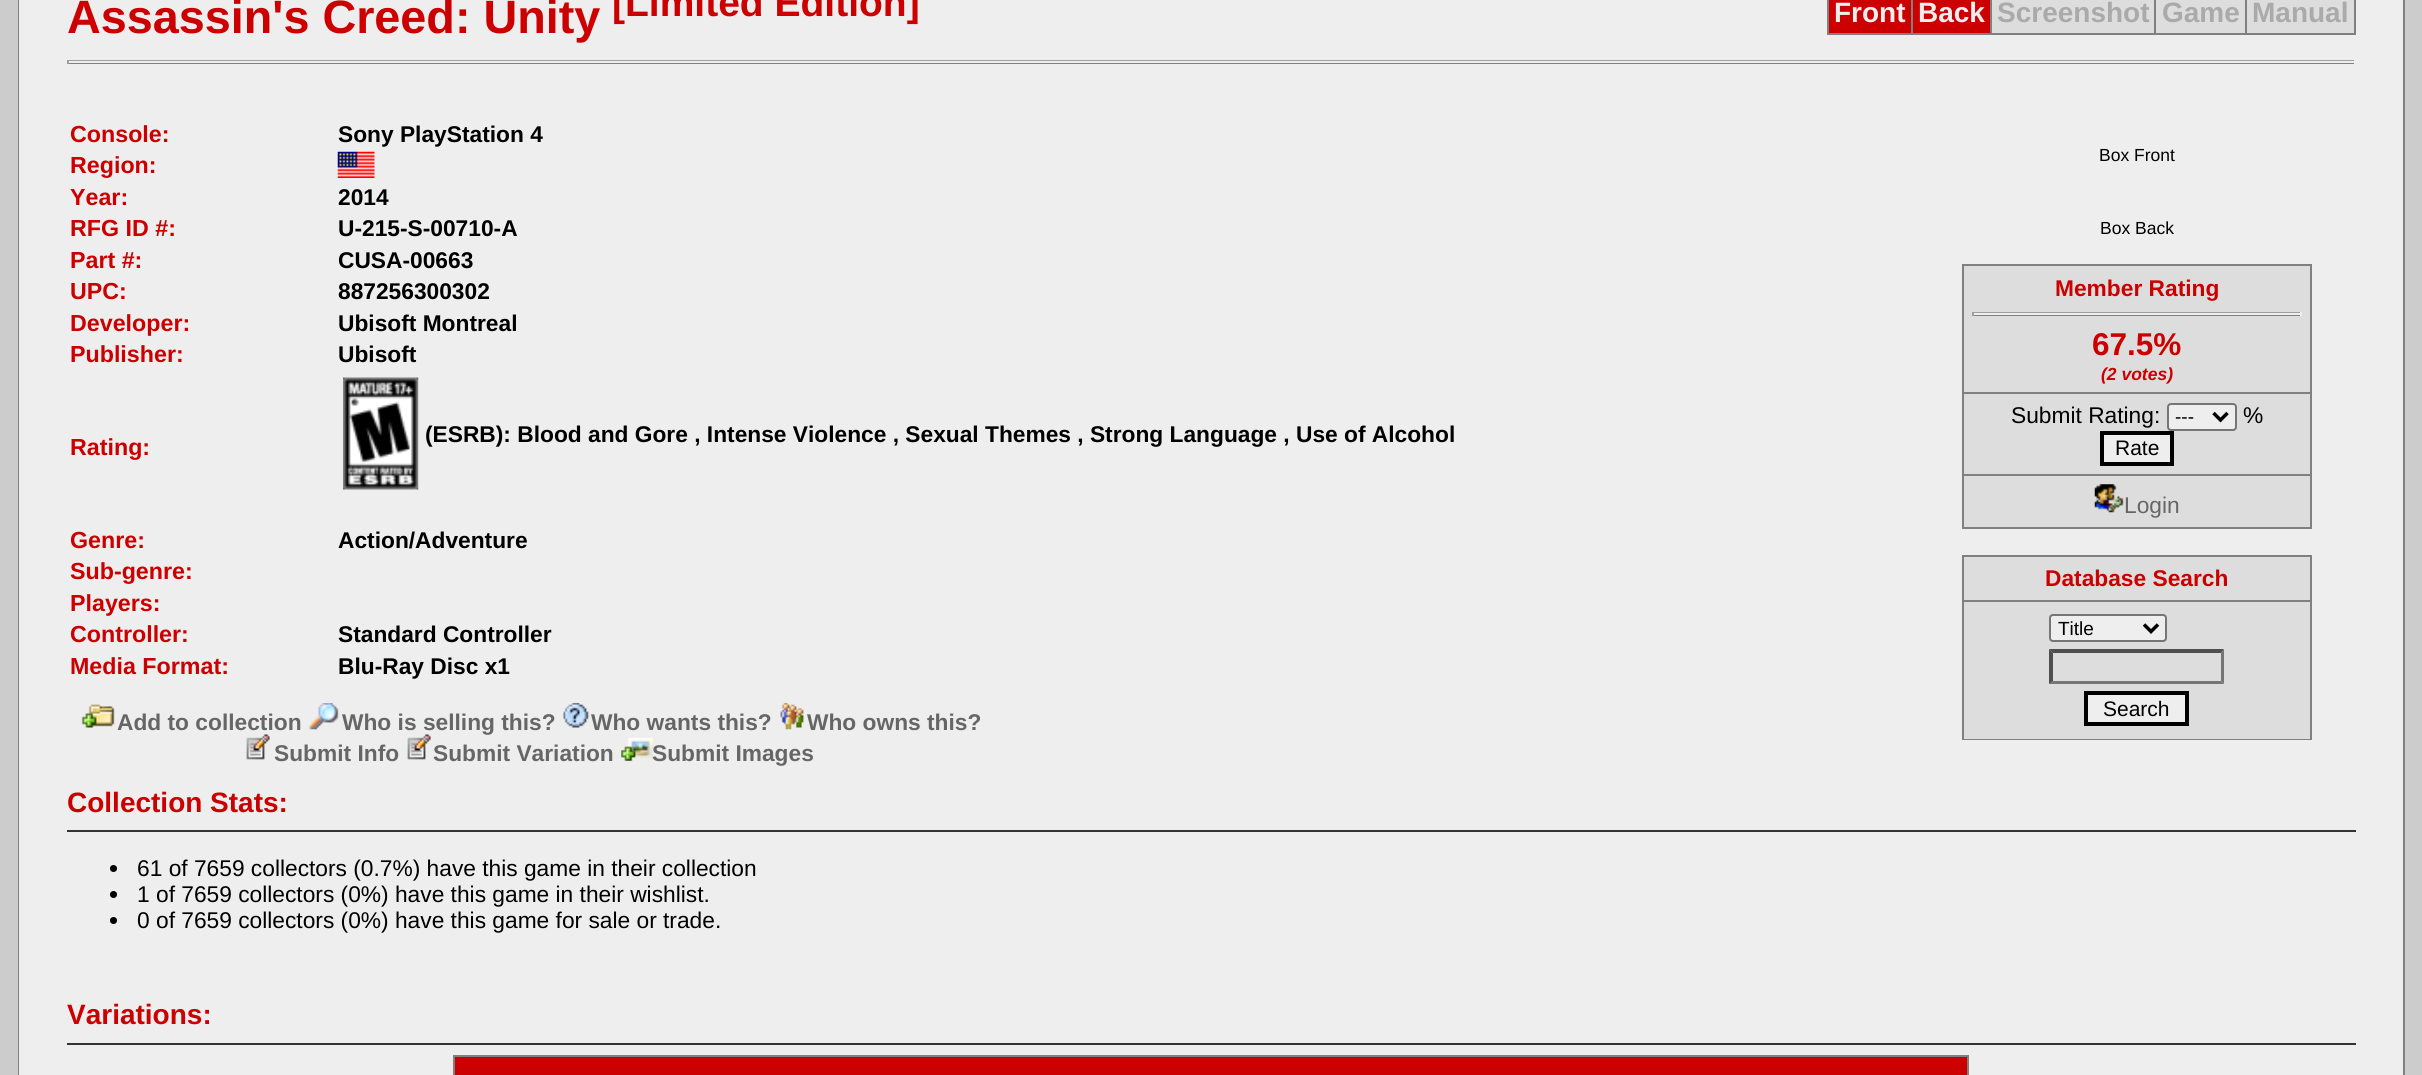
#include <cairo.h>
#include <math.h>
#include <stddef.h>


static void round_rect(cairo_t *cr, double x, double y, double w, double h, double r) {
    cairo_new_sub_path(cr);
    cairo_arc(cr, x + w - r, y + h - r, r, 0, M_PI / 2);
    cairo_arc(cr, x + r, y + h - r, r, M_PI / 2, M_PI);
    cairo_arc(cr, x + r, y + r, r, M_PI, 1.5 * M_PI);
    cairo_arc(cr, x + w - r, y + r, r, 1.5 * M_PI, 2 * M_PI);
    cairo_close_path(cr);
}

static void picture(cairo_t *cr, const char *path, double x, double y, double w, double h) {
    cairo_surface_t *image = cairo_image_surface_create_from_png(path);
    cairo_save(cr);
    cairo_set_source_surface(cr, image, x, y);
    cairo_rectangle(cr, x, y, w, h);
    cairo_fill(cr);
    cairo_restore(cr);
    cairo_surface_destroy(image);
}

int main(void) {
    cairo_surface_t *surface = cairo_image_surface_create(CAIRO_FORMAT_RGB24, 2422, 1075);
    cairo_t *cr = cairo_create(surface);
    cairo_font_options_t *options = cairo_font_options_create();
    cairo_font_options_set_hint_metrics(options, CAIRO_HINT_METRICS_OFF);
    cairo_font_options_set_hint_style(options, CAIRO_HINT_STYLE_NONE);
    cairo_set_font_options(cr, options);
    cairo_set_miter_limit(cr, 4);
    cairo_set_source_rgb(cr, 0.8, 0.8, 0.8);
    cairo_paint(cr);
    cairo_set_source_rgb(cr, 0.502, 0.502, 0.502);
    cairo_rectangle(cr, 18, 0, 2387, 1075);
    cairo_fill(cr);
    cairo_set_source_rgb(cr, 0.933, 0.933, 0.933);
    cairo_rectangle(cr, 19, 0, 2384, 1075);
    cairo_fill(cr);
    cairo_select_font_face(cr, "Liberation Sans", CAIRO_FONT_SLANT_NORMAL, CAIRO_FONT_WEIGHT_BOLD);
    cairo_set_font_size(cr, 46.75);
    cairo_set_source_rgb(cr, 0.8, 0, 0);
    cairo_move_to(cr, 67, 33);
    cairo_show_text(cr, "Assassin's Creed: Unity");
    cairo_set_font_size(cr, 39);
    cairo_move_to(cr, 612, 16);
    cairo_show_text(cr, "[Limited Edition]");
    cairo_set_source_rgb(cr, 0.502, 0.502, 0.502);
    cairo_rectangle(cr, 1827, 0, 529, 35);
    cairo_fill(cr);
    cairo_set_source_rgb(cr, 0.8, 0, 0);
    cairo_rectangle(cr, 1829, 0, 82, 33);
    cairo_fill(cr);
    cairo_set_font_size(cr, 28);
    cairo_set_source_rgb(cr, 0.933, 0.933, 0.933);
    cairo_move_to(cr, 1834, 22);
    cairo_show_text(cr, "Front");
    cairo_set_source_rgb(cr, 0.8, 0, 0);
    cairo_rectangle(cr, 1913, 0, 77, 33);
    cairo_fill(cr);
    cairo_set_source_rgb(cr, 0.933, 0.933, 0.933);
    cairo_move_to(cr, 1918, 22);
    cairo_show_text(cr, "Back");
    cairo_set_source_rgb(cr, 0.867, 0.867, 0.867);
    cairo_rectangle(cr, 1992, 0, 162, 33);
    cairo_fill(cr);
    cairo_set_source_rgb(cr, 0.667, 0.667, 0.667);
    cairo_move_to(cr, 1997, 22);
    cairo_show_text(cr, "Screenshot");
    cairo_set_source_rgb(cr, 0.867, 0.867, 0.867);
    cairo_rectangle(cr, 2156, 0, 89, 33);
    cairo_fill(cr);
    cairo_set_source_rgb(cr, 0.667, 0.667, 0.667);
    cairo_move_to(cr, 2162, 22);
    cairo_show_text(cr, "Game");
    cairo_set_source_rgb(cr, 0.867, 0.867, 0.867);
    cairo_rectangle(cr, 2247, 0, 107, 33);
    cairo_fill(cr);
    cairo_set_source_rgb(cr, 0.667, 0.667, 0.667);
    cairo_move_to(cr, 2252, 22);
    cairo_show_text(cr, "Manual");
    cairo_set_source_rgb(cr, 0.502, 0.502, 0.502);
    cairo_rectangle(cr, 67, 63, 2289, 1);
    cairo_fill(cr);
    cairo_set_source_rgb(cr, 0.624, 0.624, 0.624);
    cairo_rectangle(cr, 67, 60, 2289, 1);
    cairo_fill(cr);
    cairo_set_source_rgb(cr, 0.933, 0.933, 0.933);
    cairo_rectangle(cr, 2354, 60, 2, 4);
    cairo_fill(cr);
    cairo_set_source_rgb(cr, 0.624, 0.624, 0.624);
    cairo_rectangle(cr, 67, 60, 2, 4);
    cairo_fill(cr);
    cairo_set_font_size(cr, 23.25);
    cairo_set_source_rgb(cr, 0.8, 0, 0);
    cairo_move_to(cr, 70, 142);
    cairo_show_text(cr, "Console:");
    cairo_set_font_size(cr, 22.75);
    cairo_set_source_rgb(cr, 0, 0, 0);
    cairo_move_to(cr, 338, 142);
    cairo_show_text(cr, "Sony PlayStation 4");
    cairo_set_font_size(cr, 23.25);
    cairo_set_source_rgb(cr, 0.8, 0, 0);
    cairo_move_to(cr, 70, 173);
    cairo_show_text(cr, "Region:");
    picture(cr, "img1.png", 337, 151, 38, 27);
    cairo_move_to(cr, 70, 205);
    cairo_show_text(cr, "Year:");
    cairo_set_font_size(cr, 22.75);
    cairo_set_source_rgb(cr, 0, 0, 0);
    cairo_move_to(cr, 338, 205);
    cairo_show_text(cr, "2014");
    cairo_set_font_size(cr, 23.25);
    cairo_set_source_rgb(cr, 0.8, 0, 0);
    cairo_move_to(cr, 70, 236);
    cairo_show_text(cr, "RFG ID #:");
    cairo_set_font_size(cr, 22.75);
    cairo_set_source_rgb(cr, 0, 0, 0);
    cairo_move_to(cr, 338, 236);
    cairo_show_text(cr, "U-215-S-00710-A");
    cairo_set_font_size(cr, 23.25);
    cairo_set_source_rgb(cr, 0.8, 0, 0);
    cairo_move_to(cr, 70, 268);
    cairo_show_text(cr, "Part #:");
    cairo_set_font_size(cr, 22.75);
    cairo_set_source_rgb(cr, 0, 0, 0);
    cairo_move_to(cr, 338, 268);
    cairo_show_text(cr, "CUSA-00663");
    cairo_set_font_size(cr, 23.25);
    cairo_set_source_rgb(cr, 0.8, 0, 0);
    cairo_move_to(cr, 70, 299);
    cairo_show_text(cr, "UPC:");
    cairo_set_font_size(cr, 22.75);
    cairo_set_source_rgb(cr, 0, 0, 0);
    cairo_move_to(cr, 338, 299);
    cairo_show_text(cr, "887256300302");
    cairo_set_font_size(cr, 23.25);
    cairo_set_source_rgb(cr, 0.8, 0, 0);
    cairo_move_to(cr, 70, 331);
    cairo_show_text(cr, "Developer:");
    cairo_set_font_size(cr, 22.75);
    cairo_set_source_rgb(cr, 0, 0, 0);
    cairo_move_to(cr, 338, 331);
    cairo_show_text(cr, "Ubisoft Montreal");
    cairo_set_font_size(cr, 23.25);
    cairo_set_source_rgb(cr, 0.8, 0, 0);
    cairo_move_to(cr, 70, 362);
    cairo_show_text(cr, "Publisher:");
    cairo_set_font_size(cr, 22.75);
    cairo_set_source_rgb(cr, 0, 0, 0);
    cairo_move_to(cr, 338, 362);
    cairo_show_text(cr, "Ubisoft");
    cairo_set_font_size(cr, 23.25);
    cairo_set_source_rgb(cr, 0.8, 0, 0);
    cairo_move_to(cr, 70, 455);
    cairo_show_text(cr, "Rating:");
    picture(cr, "img2.png", 343, 377, 76, 113);
    cairo_set_font_size(cr, 22.75);
    cairo_set_source_rgb(cr, 0, 0, 0);
    cairo_move_to(cr, 425, 442);
    cairo_show_text(cr, "(ESRB): Blood and Gore , Intense Violence , Sexual Themes , Strong Language , Use of Alcohol");
    cairo_set_font_size(cr, 23.25);
    cairo_set_source_rgb(cr, 0.8, 0, 0);
    cairo_move_to(cr, 70, 548);
    cairo_show_text(cr, "Genre:");
    cairo_set_font_size(cr, 22.75);
    cairo_set_source_rgb(cr, 0, 0, 0);
    cairo_move_to(cr, 338, 548);
    cairo_show_text(cr, "Action/Adventure");
    cairo_set_font_size(cr, 23.25);
    cairo_set_source_rgb(cr, 0.8, 0, 0);
    cairo_move_to(cr, 70, 579);
    cairo_show_text(cr, "Sub-genre:");
    cairo_move_to(cr, 70, 611);
    cairo_show_text(cr, "Players:");
    cairo_move_to(cr, 70, 642);
    cairo_show_text(cr, "Controller:");
    cairo_set_font_size(cr, 22.75);
    cairo_set_source_rgb(cr, 0, 0, 0);
    cairo_move_to(cr, 338, 642);
    cairo_show_text(cr, "Standard Controller");
    cairo_set_font_size(cr, 23.25);
    cairo_set_source_rgb(cr, 0.8, 0, 0);
    cairo_move_to(cr, 70, 674);
    cairo_show_text(cr, "Media Format:");
    cairo_set_font_size(cr, 22.75);
    cairo_set_source_rgb(cr, 0, 0, 0);
    cairo_move_to(cr, 338, 674);
    cairo_show_text(cr, "Blu-Ray Disc x1");
    cairo_select_font_face(cr, "Liberation Sans", CAIRO_FONT_SLANT_NORMAL, CAIRO_FONT_WEIGHT_NORMAL);
    cairo_set_font_size(cr, 17.5);
    cairo_move_to(cr, 2099, 161);
    cairo_show_text(cr, "Box Front");
    cairo_move_to(cr, 2100, 234);
    cairo_show_text(cr, "Box Back");
    cairo_set_source_rgb(cr, 0.502, 0.502, 0.502);
    cairo_rectangle(cr, 1962, 264, 350, 265);
    cairo_fill(cr);
    cairo_set_source_rgb(cr, 0.867, 0.867, 0.867);
    cairo_rectangle(cr, 1964, 266, 346, 126);
    cairo_fill(cr);
    cairo_select_font_face(cr, "Liberation Sans", CAIRO_FONT_SLANT_NORMAL, CAIRO_FONT_WEIGHT_BOLD);
    cairo_set_font_size(cr, 22.75);
    cairo_set_source_rgb(cr, 0.8, 0, 0);
    cairo_move_to(cr, 2055, 296);
    cairo_show_text(cr, "Member Rating");
    cairo_set_source_rgb(cr, 0.502, 0.502, 0.502);
    cairo_rectangle(cr, 1972, 315, 329, 1);
    cairo_fill(cr);
    cairo_set_source_rgb(cr, 0.624, 0.624, 0.624);
    cairo_rectangle(cr, 1972, 312, 329, 1);
    cairo_fill(cr);
    cairo_set_source_rgb(cr, 0.933, 0.933, 0.933);
    cairo_rectangle(cr, 2300, 312, 2, 4);
    cairo_fill(cr);
    cairo_rectangle(cr, 1972, 313, 329, 2);
    cairo_fill(cr);
    cairo_set_source_rgb(cr, 0.624, 0.624, 0.624);
    cairo_rectangle(cr, 1972, 312, 2, 4);
    cairo_fill(cr);
    cairo_set_font_size(cr, 31.5);
    cairo_set_source_rgb(cr, 0.8, 0, 0);
    cairo_move_to(cr, 2092, 355);
    cairo_show_text(cr, "67.5%");
    cairo_select_font_face(cr, "Liberation Sans", CAIRO_FONT_SLANT_ITALIC, CAIRO_FONT_WEIGHT_BOLD);
    cairo_set_font_size(cr, 17.5);
    cairo_move_to(cr, 2101, 380);
    cairo_show_text(cr, "(2 votes)");
    cairo_set_source_rgb(cr, 0.867, 0.867, 0.867);
    cairo_rectangle(cr, 1964, 394, 346, 80);
    cairo_fill(cr);
    cairo_select_font_face(cr, "Liberation Sans", CAIRO_FONT_SLANT_NORMAL, CAIRO_FONT_WEIGHT_NORMAL);
    cairo_set_font_size(cr, 22.75);
    cairo_set_source_rgb(cr, 0, 0, 0);
    cairo_move_to(cr, 2011, 423);
    cairo_show_text(cr, "Submit Rating:");
    cairo_set_source_rgb(cr, 0.933, 0.933, 0.933);
    round_rect(cr, 2168, 404, 68, 26, 3);
    cairo_fill_preserve(cr);
    cairo_set_source_rgb(cr, 0.463, 0.463, 0.463);
    cairo_stroke(cr);
    cairo_new_path(cr);
    cairo_move_to(cr, 2213.5, 413);
    cairo_line_to(cr, 2220.5, 420);
    cairo_line_to(cr, 2227.5, 413);
    cairo_set_source_rgb(cr, 0, 0, 0);
    cairo_set_line_width(cr, 3.5);
    cairo_stroke(cr);
    cairo_set_font_size(cr, 19);
    cairo_move_to(cr, 2175, 423);
    cairo_show_text(cr, "---");
    cairo_set_font_size(cr, 22.75);
    cairo_move_to(cr, 2243, 423);
    cairo_show_text(cr, "%");
    cairo_set_source_rgb(cr, 0.933, 0.933, 0.933);
    cairo_rectangle(cr, 2102, 433, 70, 31);
    cairo_fill_preserve(cr);
    cairo_set_source_rgb(cr, 0, 0, 0);
    cairo_set_line_width(cr, 4);
    cairo_stroke(cr);
    cairo_set_font_size(cr, 21);
    cairo_move_to(cr, 2115, 455);
    cairo_show_text(cr, "Rate");
    cairo_set_source_rgb(cr, 0.867, 0.867, 0.867);
    cairo_rectangle(cr, 1964, 476, 346, 51);
    cairo_fill(cr);
    picture(cr, "img3.png", 2094, 484, 30, 29);
    cairo_set_font_size(cr, 22.75);
    cairo_set_source_rgb(cr, 0.4, 0.4, 0.4);
    cairo_move_to(cr, 2124, 513);
    cairo_show_text(cr, "Login");
    cairo_set_source_rgb(cr, 0.502, 0.502, 0.502);
    cairo_rectangle(cr, 1962, 555, 350, 185);
    cairo_fill(cr);
    cairo_set_source_rgb(cr, 0.867, 0.867, 0.867);
    cairo_rectangle(cr, 1964, 557, 346, 43);
    cairo_fill(cr);
    cairo_select_font_face(cr, "Liberation Sans", CAIRO_FONT_SLANT_NORMAL, CAIRO_FONT_WEIGHT_BOLD);
    cairo_set_source_rgb(cr, 0.8, 0, 0);
    cairo_move_to(cr, 2045, 586);
    cairo_show_text(cr, "Database Search");
    cairo_set_source_rgb(cr, 0.867, 0.867, 0.867);
    cairo_rectangle(cr, 1964, 602, 346, 137);
    cairo_fill(cr);
    cairo_set_source_rgb(cr, 0.933, 0.933, 0.933);
    round_rect(cr, 2050, 615, 116, 26, 3);
    cairo_fill_preserve(cr);
    cairo_set_source_rgb(cr, 0.463, 0.463, 0.463);
    cairo_set_line_width(cr, 2);
    cairo_stroke(cr);
    cairo_new_path(cr);
    cairo_move_to(cr, 2144, 624.5);
    cairo_line_to(cr, 2151, 631.5);
    cairo_line_to(cr, 2158, 624.5);
    cairo_set_source_rgb(cr, 0, 0, 0);
    cairo_set_line_width(cr, 3.5);
    cairo_stroke(cr);
    cairo_select_font_face(cr, "Liberation Sans", CAIRO_FONT_SLANT_NORMAL, CAIRO_FONT_WEIGHT_NORMAL);
    cairo_set_font_size(cr, 19);
    cairo_move_to(cr, 2058, 635);
    cairo_show_text(cr, "Title");
    cairo_set_source_rgb(cr, 0.31, 0.31, 0.31);
    cairo_new_path(cr);
    cairo_move_to(cr, 2049, 649);
    cairo_line_to(cr, 2224, 649);
    cairo_line_to(cr, 2221, 653);
    cairo_line_to(cr, 2053, 653);
    cairo_close_path(cr);
    cairo_fill(cr);
    cairo_set_source_rgb(cr, 0.463, 0.463, 0.463);
    cairo_new_path(cr);
    cairo_move_to(cr, 2224, 649);
    cairo_line_to(cr, 2224, 684);
    cairo_line_to(cr, 2221, 681);
    cairo_line_to(cr, 2221, 653);
    cairo_close_path(cr);
    cairo_fill(cr);
    cairo_new_path(cr);
    cairo_move_to(cr, 2224, 684);
    cairo_line_to(cr, 2049, 684);
    cairo_line_to(cr, 2053, 681);
    cairo_line_to(cr, 2221, 681);
    cairo_close_path(cr);
    cairo_fill(cr);
    cairo_set_source_rgb(cr, 0.31, 0.31, 0.31);
    cairo_new_path(cr);
    cairo_move_to(cr, 2049, 684);
    cairo_line_to(cr, 2049, 649);
    cairo_line_to(cr, 2053, 653);
    cairo_line_to(cr, 2053, 681);
    cairo_close_path(cr);
    cairo_fill(cr);
    cairo_set_source_rgb(cr, 0.933, 0.933, 0.933);
    cairo_rectangle(cr, 2086, 693, 101, 31);
    cairo_fill_preserve(cr);
    cairo_set_source_rgb(cr, 0, 0, 0);
    cairo_set_line_width(cr, 4);
    cairo_stroke(cr);
    cairo_set_font_size(cr, 21);
    cairo_move_to(cr, 2103, 716);
    cairo_show_text(cr, "Search");
    picture(cr, "img4.png", 81, 704, 34, 24);
    cairo_select_font_face(cr, "Liberation Sans", CAIRO_FONT_SLANT_NORMAL, CAIRO_FONT_WEIGHT_BOLD);
    cairo_set_font_size(cr, 22.75);
    cairo_set_source_rgb(cr, 0.4, 0.4, 0.4);
    cairo_move_to(cr, 117, 730);
    cairo_show_text(cr, "Add to collection");
    picture(cr, "img5.png", 309, 703, 30, 27);
    cairo_move_to(cr, 342, 730);
    cairo_show_text(cr, "Who is selling this?");
    picture(cr, "img6.png", 563, 703, 26, 25);
    cairo_move_to(cr, 591, 730);
    cairo_show_text(cr, "Who wants this?");
    picture(cr, "img7.png", 780, 703, 24, 27);
    cairo_move_to(cr, 807, 730);
    cairo_show_text(cr, "Who owns this?");
    picture(cr, "img8.png", 246, 734, 24, 26);
    cairo_move_to(cr, 274, 761);
    cairo_show_text(cr, "Submit Info");
    picture(cr, "img9.png", 407, 734, 24, 26);
    cairo_move_to(cr, 433, 761);
    cairo_show_text(cr, "Submit Variation");
    picture(cr, "img10.png", 621, 738, 32, 23);
    cairo_move_to(cr, 652, 761);
    cairo_show_text(cr, "Submit Images");
    cairo_set_font_size(cr, 28);
    cairo_set_source_rgb(cr, 0.8, 0, 0);
    cairo_move_to(cr, 67, 812);
    cairo_show_text(cr, "Collection Stats:");
    cairo_set_source_rgb(cr, 0.2, 0.2, 0.2);
    cairo_rectangle(cr, 67, 830, 2289, 2);
    cairo_fill(cr);
    cairo_set_source_rgb(cr, 0, 0, 0);
    cairo_arc(cr, 113.5, 868.5, 3.5, 0, 2 * M_PI);
    cairo_fill(cr);
    cairo_select_font_face(cr, "Liberation Sans", CAIRO_FONT_SLANT_NORMAL, CAIRO_FONT_WEIGHT_NORMAL);
    cairo_set_font_size(cr, 22.75);
    cairo_move_to(cr, 137, 876);
    cairo_show_text(cr, "61 of 7659 collectors (0.7%) have this game in their collection");
    cairo_new_path(cr);
    cairo_arc(cr, 113.5, 894.5, 3.5, 0, 2 * M_PI);
    cairo_fill(cr);
    cairo_move_to(cr, 137, 902);
    cairo_show_text(cr, "1 of 7659 collectors (0%) have this game in their wishlist.");
    cairo_new_path(cr);
    cairo_arc(cr, 113.5, 920.5, 3.5, 0, 2 * M_PI);
    cairo_fill(cr);
    cairo_move_to(cr, 137, 928);
    cairo_show_text(cr, "0 of 7659 collectors (0%) have this game for sale or trade.");
    cairo_select_font_face(cr, "Liberation Sans", CAIRO_FONT_SLANT_NORMAL, CAIRO_FONT_WEIGHT_BOLD);
    cairo_set_font_size(cr, 28);
    cairo_set_source_rgb(cr, 0.8, 0, 0);
    cairo_move_to(cr, 67, 1024);
    cairo_show_text(cr, "Variations:");
    cairo_set_source_rgb(cr, 0.2, 0.2, 0.2);
    cairo_rectangle(cr, 67, 1043, 2289, 2);
    cairo_fill(cr);
    cairo_set_source_rgb(cr, 0.502, 0.502, 0.502);
    cairo_rectangle(cr, 453, 1055, 1516, 20);
    cairo_fill(cr);
    cairo_set_source_rgb(cr, 0.8, 0, 0);
    cairo_rectangle(cr, 455, 1057, 1512, 18);
    cairo_fill(cr);
    cairo_surface_write_to_png(surface, "page.png");
    cairo_font_options_destroy(options);
    cairo_destroy(cr);
    cairo_surface_destroy(surface);
    return 0;
}
